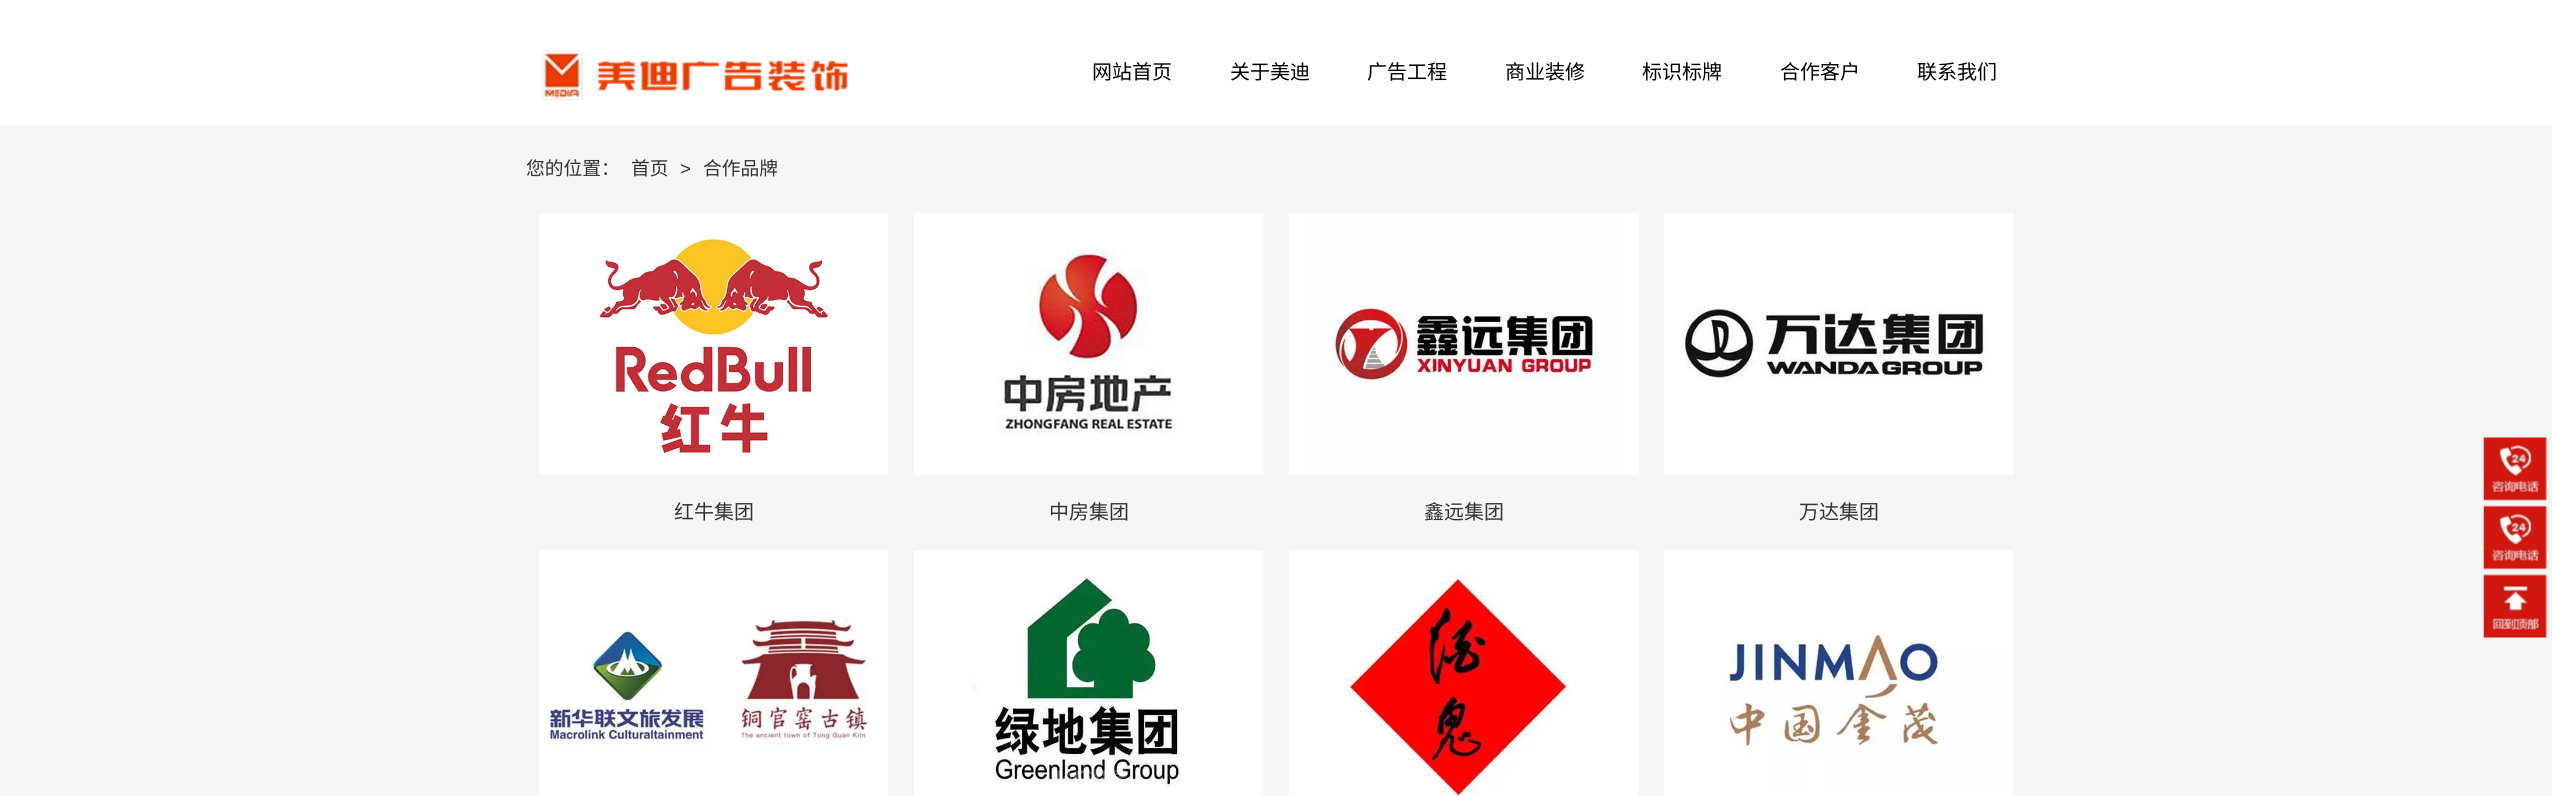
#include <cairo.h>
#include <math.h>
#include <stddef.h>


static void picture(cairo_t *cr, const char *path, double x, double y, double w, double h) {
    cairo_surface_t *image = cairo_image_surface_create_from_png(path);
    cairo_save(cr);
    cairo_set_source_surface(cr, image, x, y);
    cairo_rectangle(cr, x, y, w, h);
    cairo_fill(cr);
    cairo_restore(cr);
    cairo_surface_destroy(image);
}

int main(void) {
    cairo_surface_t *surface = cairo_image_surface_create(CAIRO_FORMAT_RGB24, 2552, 796);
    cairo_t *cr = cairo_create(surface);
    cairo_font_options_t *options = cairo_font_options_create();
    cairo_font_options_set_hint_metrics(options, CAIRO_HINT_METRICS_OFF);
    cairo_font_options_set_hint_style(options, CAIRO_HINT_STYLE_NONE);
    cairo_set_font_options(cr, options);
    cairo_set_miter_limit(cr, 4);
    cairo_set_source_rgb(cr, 0.961, 0.961, 0.961);
    cairo_paint(cr);
    cairo_set_source_rgb(cr, 1, 1, 1);
    cairo_rectangle(cr, 0, 0, 2552, 125);
    cairo_fill(cr);
    picture(cr, "img1.png", 541, 50, 308, 50);
    cairo_select_font_face(cr, "Noto Sans CJK SC", CAIRO_FONT_SLANT_NORMAL, CAIRO_FONT_WEIGHT_NORMAL);
    cairo_set_font_size(cr, 20);
    cairo_set_source_rgb(cr, 0, 0, 0);
    cairo_move_to(cr, 1092, 79);
    cairo_show_text(cr, "网站首页");
    cairo_move_to(cr, 1230, 79);
    cairo_show_text(cr, "关于美迪");
    cairo_move_to(cr, 1367, 79);
    cairo_show_text(cr, "广告工程");
    cairo_move_to(cr, 1505, 79);
    cairo_show_text(cr, "商业装修");
    cairo_move_to(cr, 1642, 79);
    cairo_show_text(cr, "标识标牌");
    cairo_move_to(cr, 1780, 79);
    cairo_show_text(cr, "合作客户");
    cairo_move_to(cr, 1917, 79);
    cairo_show_text(cr, "联系我们");
    cairo_set_font_size(cr, 18.75);
    cairo_set_source_rgb(cr, 0.2, 0.2, 0.2);
    cairo_move_to(cr, 526, 175);
    cairo_show_text(cr, "您的位置：");
    cairo_move_to(cr, 631, 175);
    cairo_show_text(cr, "首页");
    cairo_select_font_face(cr, "Liberation Sans", CAIRO_FONT_SLANT_NORMAL, CAIRO_FONT_WEIGHT_NORMAL);
    cairo_move_to(cr, 680, 175);
    cairo_show_text(cr, ">");
    cairo_select_font_face(cr, "Noto Sans CJK SC", CAIRO_FONT_SLANT_NORMAL, CAIRO_FONT_WEIGHT_NORMAL);
    cairo_move_to(cr, 703, 175);
    cairo_show_text(cr, "合作品牌");
    cairo_set_source_rgb(cr, 0.976, 0.976, 0.976);
    cairo_rectangle(cr, 888, 213, 1, 262);
    cairo_fill(cr);
    picture(cr, "img2.png", 539, 213, 349, 262);
    cairo_set_font_size(cr, 20);
    cairo_set_source_rgb(cr, 0.2, 0.2, 0.2);
    cairo_move_to(cr, 674, 519);
    cairo_show_text(cr, "红牛集团");
    cairo_set_source_rgb(cr, 0.976, 0.976, 0.976);
    cairo_rectangle(cr, 1263, 213, 1, 262);
    cairo_fill(cr);
    picture(cr, "img3.png", 914, 213, 349, 262);
    cairo_set_source_rgb(cr, 0.2, 0.2, 0.2);
    cairo_move_to(cr, 1049, 519);
    cairo_show_text(cr, "中房集团");
    cairo_set_source_rgb(cr, 0.976, 0.976, 0.976);
    cairo_rectangle(cr, 1638, 213, 1, 262);
    cairo_fill(cr);
    picture(cr, "img4.png", 1289, 213, 349, 262);
    cairo_set_source_rgb(cr, 0.2, 0.2, 0.2);
    cairo_move_to(cr, 1424, 519);
    cairo_show_text(cr, "鑫远集团");
    cairo_set_source_rgb(cr, 0.976, 0.976, 0.976);
    cairo_rectangle(cr, 2013, 213, 1, 262);
    cairo_fill(cr);
    picture(cr, "img5.png", 1664, 213, 349, 262);
    cairo_set_source_rgb(cr, 0.2, 0.2, 0.2);
    cairo_move_to(cr, 1799, 519);
    cairo_show_text(cr, "万达集团");
    cairo_set_source_rgb(cr, 0.976, 0.976, 0.976);
    cairo_rectangle(cr, 888, 550, 1, 246);
    cairo_fill(cr);
    picture(cr, "img6.png", 539, 550, 349, 246);
    cairo_rectangle(cr, 1263, 550, 1, 246);
    cairo_fill(cr);
    picture(cr, "img7.png", 914, 550, 349, 246);
    cairo_rectangle(cr, 1638, 550, 1, 246);
    cairo_fill(cr);
    picture(cr, "img8.png", 1289, 550, 349, 246);
    cairo_rectangle(cr, 2013, 550, 1, 246);
    cairo_fill(cr);
    picture(cr, "img9.png", 1664, 550, 349, 246);
    picture(cr, "img10.png", 2483, 437, 64, 64);
    picture(cr, "img11.png", 2483, 505, 64, 65);
    picture(cr, "img12.png", 2483, 574, 64, 64);
    cairo_surface_write_to_png(surface, "page.png");
    cairo_font_options_destroy(options);
    cairo_destroy(cr);
    cairo_surface_destroy(surface);
    return 0;
}
